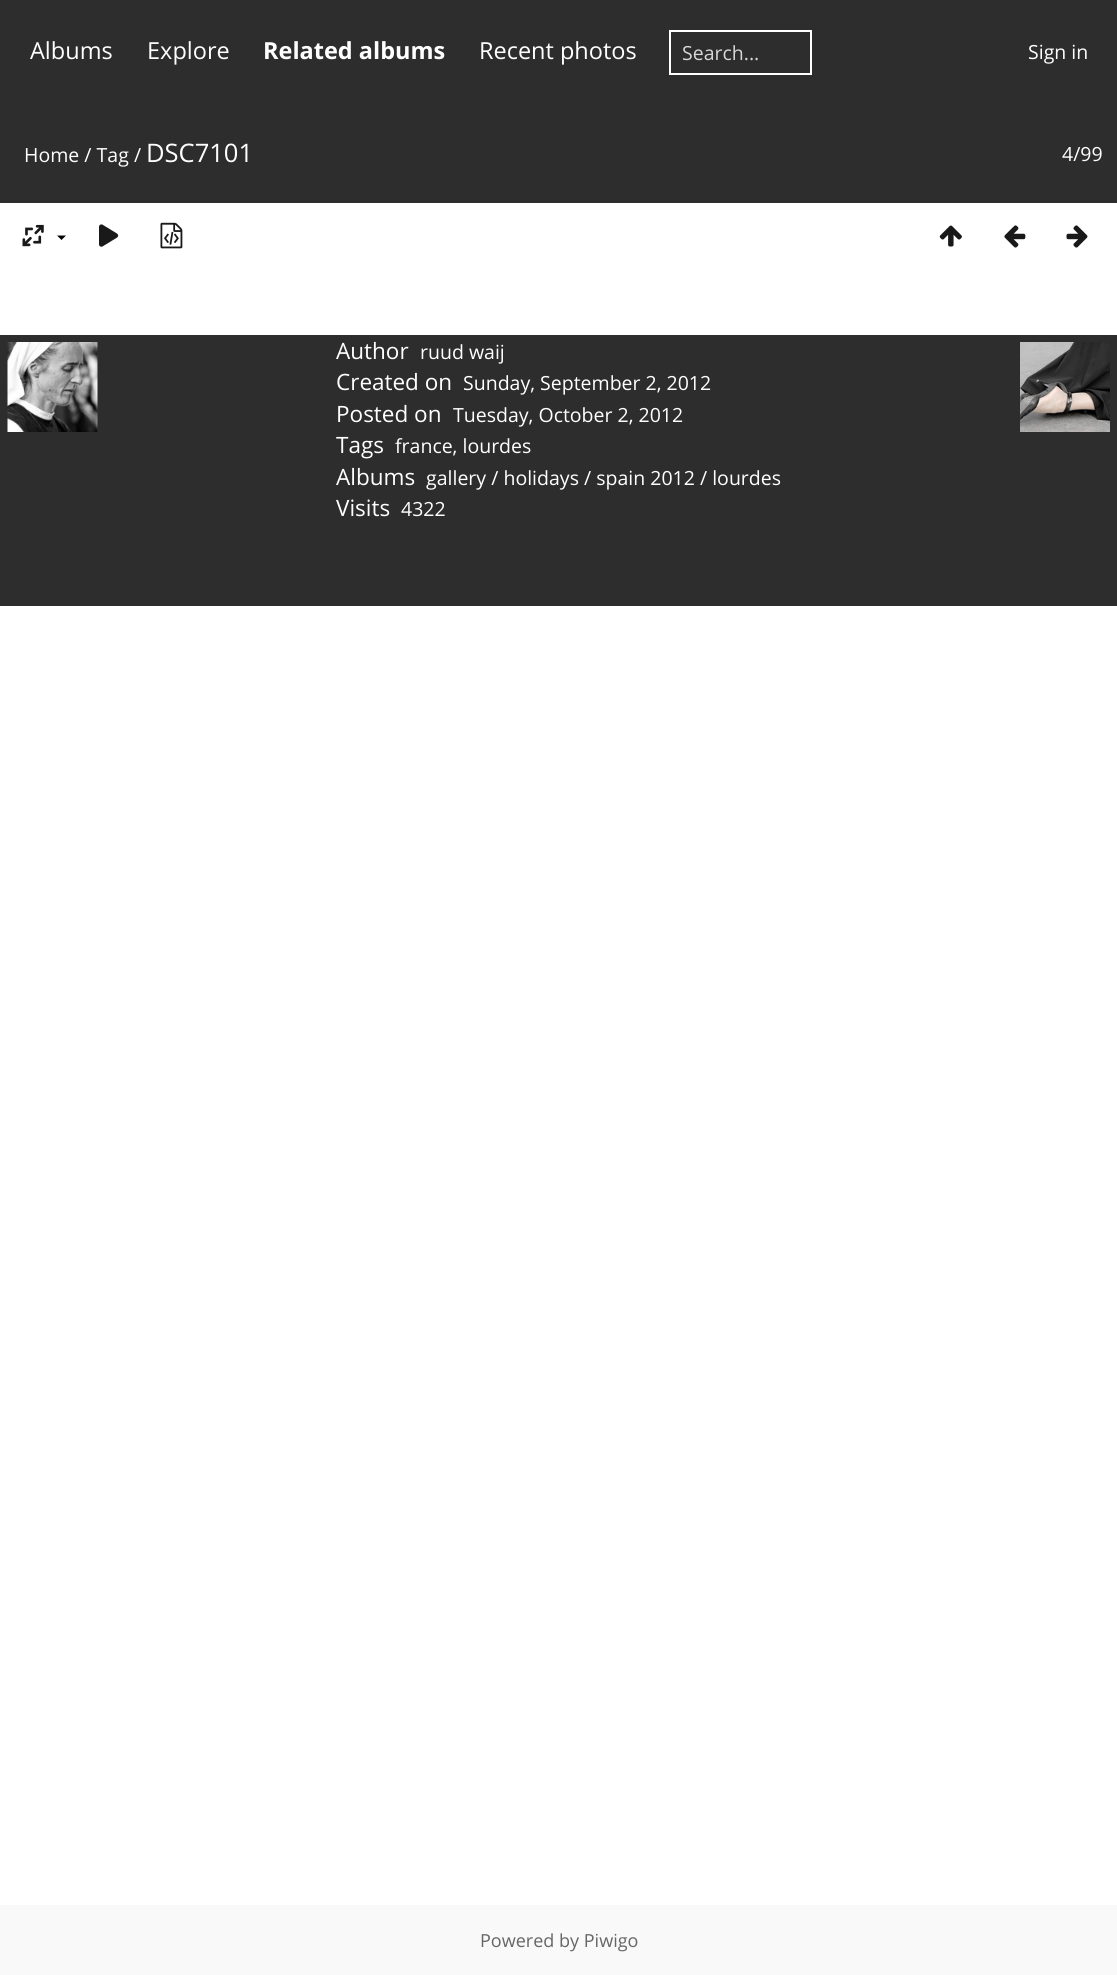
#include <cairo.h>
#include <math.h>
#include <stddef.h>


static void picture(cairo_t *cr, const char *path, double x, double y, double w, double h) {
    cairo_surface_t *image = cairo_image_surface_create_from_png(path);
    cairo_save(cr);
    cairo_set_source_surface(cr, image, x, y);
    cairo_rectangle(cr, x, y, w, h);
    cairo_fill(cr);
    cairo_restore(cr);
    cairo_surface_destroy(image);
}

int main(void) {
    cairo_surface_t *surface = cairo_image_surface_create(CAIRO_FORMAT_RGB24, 1117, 1975);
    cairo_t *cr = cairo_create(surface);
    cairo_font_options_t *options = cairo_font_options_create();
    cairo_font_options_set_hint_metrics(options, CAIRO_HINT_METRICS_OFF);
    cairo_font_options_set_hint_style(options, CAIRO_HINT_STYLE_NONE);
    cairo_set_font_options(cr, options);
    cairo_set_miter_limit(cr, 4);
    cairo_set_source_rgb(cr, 1, 1, 1);
    cairo_paint(cr);
    cairo_set_source_rgb(cr, 0.176, 0.176, 0.176);
    cairo_rectangle(cr, 0, 0, 1117, 203);
    cairo_fill(cr);
    cairo_select_font_face(cr, "Open Sans", CAIRO_FONT_SLANT_NORMAL, CAIRO_FONT_WEIGHT_NORMAL);
    cairo_set_font_size(cr, 23.5);
    cairo_set_source_rgb(cr, 1, 1, 1);
    cairo_move_to(cr, 30, 59);
    cairo_show_text(cr, "Albums");
    cairo_move_to(cr, 147, 59);
    cairo_show_text(cr, "Explore");
    cairo_select_font_face(cr, "Open Sans", CAIRO_FONT_SLANT_NORMAL, CAIRO_FONT_WEIGHT_BOLD);
    cairo_move_to(cr, 263, 59);
    cairo_show_text(cr, "Related albums");
    cairo_select_font_face(cr, "Open Sans", CAIRO_FONT_SLANT_NORMAL, CAIRO_FONT_WEIGHT_NORMAL);
    cairo_move_to(cr, 479, 59);
    cairo_show_text(cr, "Recent photos");
    cairo_rectangle(cr, 670, 31, 141, 43);
    cairo_stroke(cr);
    cairo_set_font_size(cr, 19.5);
    cairo_set_source_rgb(cr, 0.839, 0.839, 0.839);
    cairo_move_to(cr, 682, 60);
    cairo_show_text(cr, "Search...");
    cairo_set_source_rgb(cr, 1, 1, 1);
    cairo_move_to(cr, 1028, 59);
    cairo_show_text(cr, "Sign in");
    cairo_move_to(cr, 24, 162);
    cairo_show_text(cr, "Home / Tag /");
    cairo_set_font_size(cr, 25.5);
    cairo_move_to(cr, 146, 162);
    cairo_show_text(cr, "DSC7101");
    cairo_set_font_size(cr, 19.5);
    cairo_move_to(cr, 1062, 161);
    cairo_show_text(cr, "4/99");
    picture(cr, "img1.png", 22, 224, 22, 23);
    cairo_set_source_rgb(cr, 0, 0, 0);
    cairo_new_path(cr);
    cairo_move_to(cr, 57, 235.5);
    cairo_line_to(cr, 66, 235.5);
    cairo_line_to(cr, 61.5, 240);
    cairo_close_path(cr);
    cairo_fill(cr);
    picture(cr, "img2.png", 99, 224, 20, 23);
    picture(cr, "img3.png", 160, 222, 23, 27);
    picture(cr, "img4.png", 939, 225, 23, 22);
    picture(cr, "img5.png", 1004, 225, 22, 23);
    picture(cr, "img6.png", 1066, 225, 22, 23);
    cairo_set_source_rgb(cr, 0.176, 0.176, 0.176);
    cairo_rectangle(cr, 0, 335, 1117, 271);
    cairo_fill(cr);
    cairo_set_font_size(cr, 22.5);
    cairo_set_source_rgb(cr, 1, 1, 1);
    cairo_move_to(cr, 336, 359);
    cairo_show_text(cr, "Author");
    cairo_set_font_size(cr, 19.5);
    cairo_move_to(cr, 420, 359);
    cairo_show_text(cr, "ruud waij");
    cairo_set_font_size(cr, 22.5);
    cairo_move_to(cr, 336, 390);
    cairo_show_text(cr, "Created on");
    cairo_set_font_size(cr, 19.5);
    cairo_move_to(cr, 463, 390);
    cairo_show_text(cr, "Sunday, September 2, 2012");
    cairo_set_font_size(cr, 22.5);
    cairo_move_to(cr, 336, 422);
    cairo_show_text(cr, "Posted on");
    cairo_set_font_size(cr, 19.5);
    cairo_move_to(cr, 453, 422);
    cairo_show_text(cr, "Tuesday, October 2, 2012");
    cairo_set_font_size(cr, 22.5);
    cairo_move_to(cr, 336, 453);
    cairo_show_text(cr, "Tags");
    cairo_set_font_size(cr, 19.5);
    cairo_move_to(cr, 395, 453);
    cairo_show_text(cr, "france, lourdes");
    cairo_set_font_size(cr, 22.5);
    cairo_move_to(cr, 336, 485);
    cairo_show_text(cr, "Albums");
    cairo_set_font_size(cr, 19.5);
    cairo_move_to(cr, 426, 485);
    cairo_show_text(cr, "gallery / holidays / spain 2012 / lourdes");
    cairo_set_font_size(cr, 22.5);
    cairo_move_to(cr, 336, 516);
    cairo_show_text(cr, "Visits");
    cairo_set_font_size(cr, 19.5);
    cairo_move_to(cr, 401, 516);
    cairo_show_text(cr, "4322");
    picture(cr, "img7.png", 7, 342, 91, 90);
    picture(cr, "img8.png", 1020, 342, 90, 90);
    cairo_set_source_rgb(cr, 0.976, 0.976, 0.976);
    cairo_rectangle(cr, 0, 1905, 1117, 70);
    cairo_fill(cr);
    cairo_set_font_size(cr, 18);
    cairo_set_source_rgb(cr, 0.4, 0.4, 0.4);
    cairo_move_to(cr, 480, 1947);
    cairo_show_text(cr, "Powered by Piwigo");
    cairo_surface_write_to_png(surface, "page.png");
    cairo_font_options_destroy(options);
    cairo_destroy(cr);
    cairo_surface_destroy(surface);
    return 0;
}
